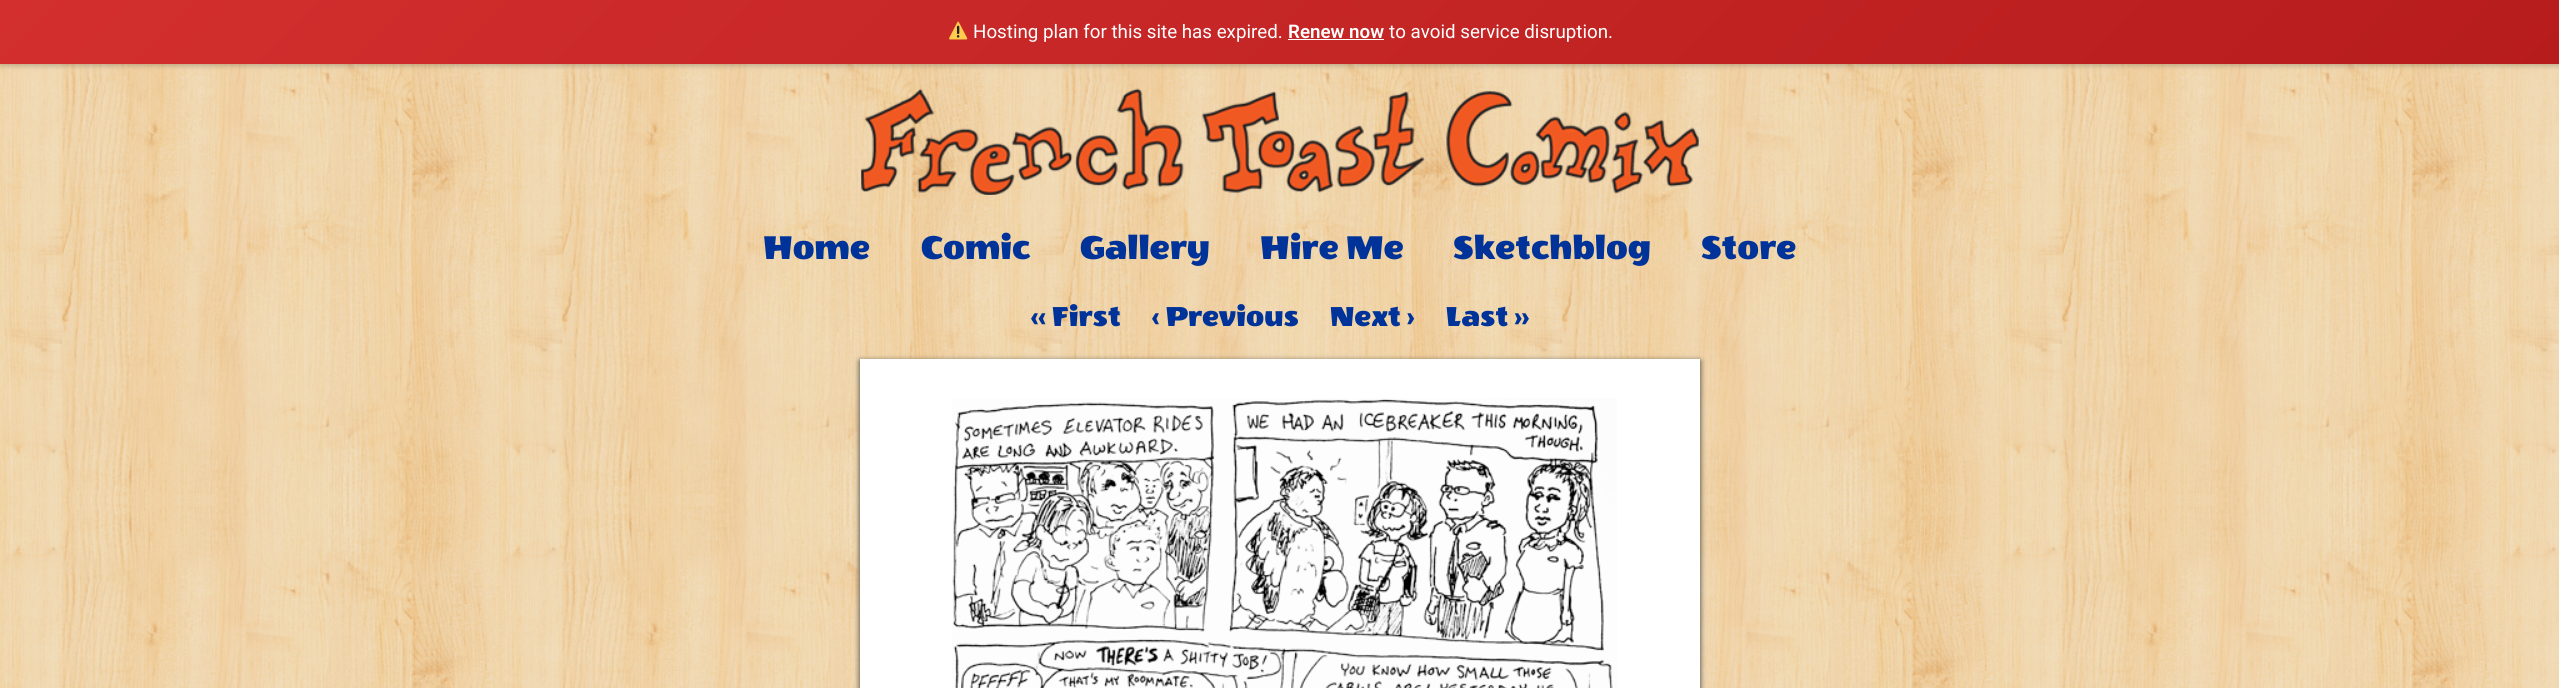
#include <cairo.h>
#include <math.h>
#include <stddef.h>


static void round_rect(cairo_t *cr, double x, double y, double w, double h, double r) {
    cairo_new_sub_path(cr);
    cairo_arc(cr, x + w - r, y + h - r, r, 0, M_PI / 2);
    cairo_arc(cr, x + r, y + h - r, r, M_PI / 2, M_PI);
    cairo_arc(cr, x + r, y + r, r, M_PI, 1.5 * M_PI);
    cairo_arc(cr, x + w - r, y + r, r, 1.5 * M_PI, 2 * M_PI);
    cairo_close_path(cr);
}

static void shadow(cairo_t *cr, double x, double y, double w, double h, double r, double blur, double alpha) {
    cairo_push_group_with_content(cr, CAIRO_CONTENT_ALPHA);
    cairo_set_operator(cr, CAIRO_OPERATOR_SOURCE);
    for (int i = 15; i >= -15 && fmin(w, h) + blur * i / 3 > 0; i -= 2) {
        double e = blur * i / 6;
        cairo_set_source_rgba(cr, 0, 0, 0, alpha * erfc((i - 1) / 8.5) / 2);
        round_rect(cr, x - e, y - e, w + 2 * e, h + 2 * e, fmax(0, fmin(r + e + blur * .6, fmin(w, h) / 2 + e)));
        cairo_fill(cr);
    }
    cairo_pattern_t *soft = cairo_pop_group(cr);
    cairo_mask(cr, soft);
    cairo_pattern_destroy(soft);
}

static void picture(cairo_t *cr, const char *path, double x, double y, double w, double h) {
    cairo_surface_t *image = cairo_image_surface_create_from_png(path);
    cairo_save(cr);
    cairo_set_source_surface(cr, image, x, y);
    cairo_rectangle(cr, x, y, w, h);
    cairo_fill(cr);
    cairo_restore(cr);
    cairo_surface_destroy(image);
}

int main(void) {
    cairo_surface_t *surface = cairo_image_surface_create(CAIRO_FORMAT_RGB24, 2559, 688);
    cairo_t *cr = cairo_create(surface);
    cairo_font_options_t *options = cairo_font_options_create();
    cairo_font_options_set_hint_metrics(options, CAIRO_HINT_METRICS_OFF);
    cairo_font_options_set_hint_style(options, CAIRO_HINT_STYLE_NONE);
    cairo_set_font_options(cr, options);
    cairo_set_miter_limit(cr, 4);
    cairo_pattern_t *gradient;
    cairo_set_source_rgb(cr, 1, 1, 1);
    cairo_paint(cr);
    picture(cr, "img1.png", 0, 64, 2559, 624);
    cairo_set_source_rgb(cr, 0, 0, 0);
    shadow(cr, 0, 3, 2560, 63, 0, 2.5, 0.2);
    gradient = cairo_pattern_create_linear(624, -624, 1936, 688);
    cairo_pattern_add_color_stop_rgba(gradient, 0, 0.827, 0.184, 0.184, 1);
    cairo_pattern_add_color_stop_rgba(gradient, 1, 0.718, 0.11, 0.11, 1);
    cairo_set_source(cr, gradient);
    cairo_pattern_destroy(gradient);
    cairo_rectangle(cr, 0, 0, 2559, 64);
    cairo_fill(cr);
    picture(cr, "img2.png", 949, 21, 19, 19);
    cairo_select_font_face(cr, "Roboto", CAIRO_FONT_SLANT_NORMAL, CAIRO_FONT_WEIGHT_NORMAL);
    cairo_set_font_size(cr, 18.75);
    cairo_set_source_rgb(cr, 1, 1, 1);
    cairo_move_to(cr, 973, 38);
    cairo_show_text(cr, "Hosting plan for this site has expired.");
    cairo_select_font_face(cr, "Roboto SemiBold", CAIRO_FONT_SLANT_NORMAL, CAIRO_FONT_WEIGHT_NORMAL);
    cairo_move_to(cr, 1288, 38);
    cairo_show_text(cr, "Renew now");
    cairo_rectangle(cr, 1288, 39, 96, 1);
    cairo_fill(cr);
    cairo_select_font_face(cr, "Roboto", CAIRO_FONT_SLANT_NORMAL, CAIRO_FONT_WEIGHT_NORMAL);
    cairo_move_to(cr, 1389, 38);
    cairo_show_text(cr, "to avoid service disruption.");
    picture(cr, "img3.png", 861, 88, 838, 107);
    cairo_select_font_face(cr, "Wendy One", CAIRO_FONT_SLANT_NORMAL, CAIRO_FONT_WEIGHT_NORMAL);
    cairo_set_font_size(cr, 37.5);
    cairo_set_source_rgb(cr, 0, 0.2, 0.6);
    cairo_move_to(cr, 763, 259);
    cairo_show_text(cr, "Home");
    cairo_move_to(cr, 921, 259);
    cairo_show_text(cr, "Comic");
    cairo_move_to(cr, 1080, 259);
    cairo_show_text(cr, "Gallery");
    cairo_move_to(cr, 1260, 259);
    cairo_show_text(cr, "Hire Me");
    cairo_move_to(cr, 1453, 259);
    cairo_show_text(cr, "Sketchblog");
    cairo_move_to(cr, 1701, 259);
    cairo_show_text(cr, "Store");
    cairo_set_font_size(cr, 31.25);
    cairo_move_to(cr, 1031, 326);
    cairo_show_text(cr, "‹‹ First");
    cairo_move_to(cr, 1152, 326);
    cairo_show_text(cr, "‹ Previous");
    cairo_move_to(cr, 1330, 326);
    cairo_show_text(cr, "Next ›");
    cairo_move_to(cr, 1446, 326);
    cairo_show_text(cr, "Last ››");
    cairo_set_source_rgb(cr, 0.2, 0.2, 0.2);
    shadow(cr, 860, 361, 840, 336, 0, 3, 1);
    cairo_set_source_rgb(cr, 1, 1, 1);
    cairo_rectangle(cr, 860, 359, 840, 329);
    cairo_fill(cr);
    picture(cr, "img4.png", 952, 398, 665, 290);
    cairo_surface_write_to_png(surface, "page.png");
    cairo_font_options_destroy(options);
    cairo_destroy(cr);
    cairo_surface_destroy(surface);
    return 0;
}
